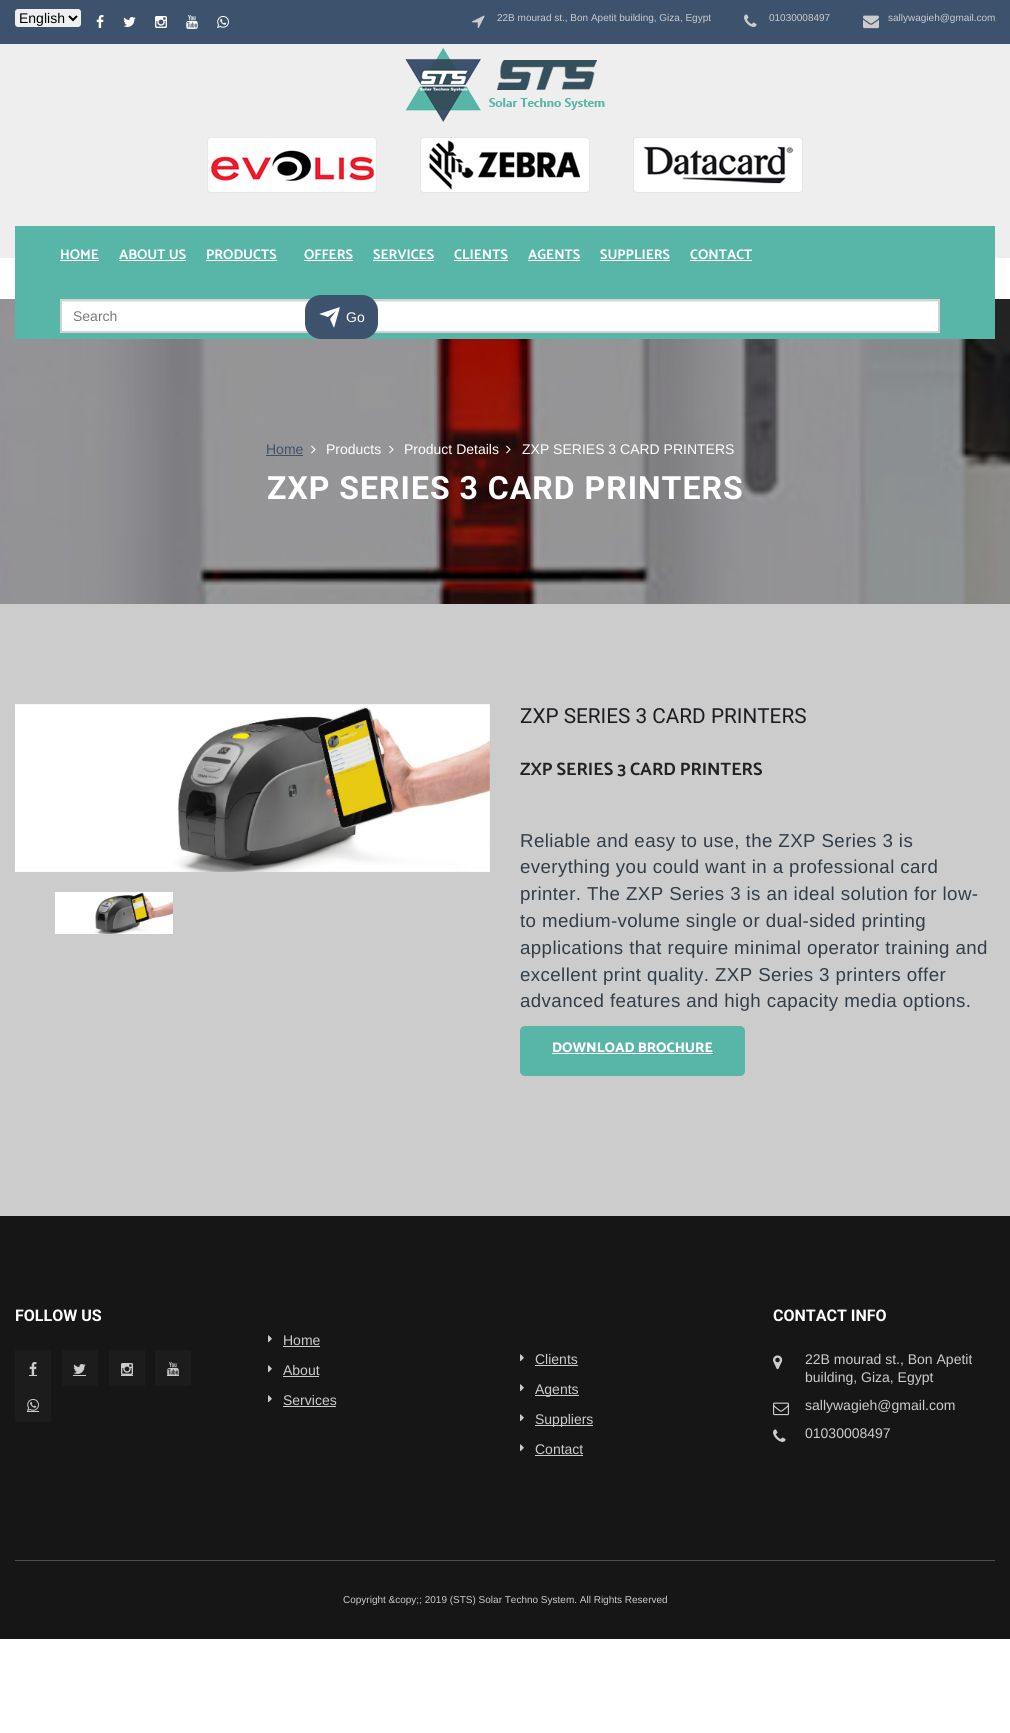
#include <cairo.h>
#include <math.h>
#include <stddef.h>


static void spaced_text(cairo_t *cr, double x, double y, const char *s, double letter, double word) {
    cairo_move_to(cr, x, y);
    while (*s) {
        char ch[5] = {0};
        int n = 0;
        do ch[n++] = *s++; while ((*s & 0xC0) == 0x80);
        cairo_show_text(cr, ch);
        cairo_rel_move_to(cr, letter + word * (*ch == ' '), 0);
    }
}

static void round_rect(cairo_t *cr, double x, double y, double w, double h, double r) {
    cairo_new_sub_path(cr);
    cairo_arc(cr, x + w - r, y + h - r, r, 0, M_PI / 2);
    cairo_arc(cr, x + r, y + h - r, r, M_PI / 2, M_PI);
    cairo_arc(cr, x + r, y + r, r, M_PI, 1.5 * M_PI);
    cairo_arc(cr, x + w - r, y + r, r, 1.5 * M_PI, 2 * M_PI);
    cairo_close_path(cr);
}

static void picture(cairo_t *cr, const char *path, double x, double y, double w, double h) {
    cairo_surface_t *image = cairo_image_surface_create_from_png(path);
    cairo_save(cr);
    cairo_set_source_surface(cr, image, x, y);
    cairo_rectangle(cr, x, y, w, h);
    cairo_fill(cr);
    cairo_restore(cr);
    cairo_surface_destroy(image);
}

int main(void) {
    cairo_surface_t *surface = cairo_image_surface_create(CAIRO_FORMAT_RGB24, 1010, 1733);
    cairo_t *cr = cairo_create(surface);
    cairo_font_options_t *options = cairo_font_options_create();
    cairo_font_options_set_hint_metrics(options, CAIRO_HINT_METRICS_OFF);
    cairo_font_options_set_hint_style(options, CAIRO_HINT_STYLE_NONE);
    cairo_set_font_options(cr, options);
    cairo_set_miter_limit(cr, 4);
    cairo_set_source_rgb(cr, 1, 1, 1);
    cairo_paint(cr);
    cairo_set_source_rgb(cr, 0.239, 0.322, 0.424);
    cairo_rectangle(cr, 0, 0, 1010, 44);
    cairo_fill(cr);
    cairo_set_source_rgb(cr, 0.937, 0.937, 0.937);
    round_rect(cr, 15, 9, 66, 18, 3);
    cairo_fill(cr);
    cairo_new_path(cr);
    cairo_move_to(cr, 69, 16);
    cairo_line_to(cr, 73, 20);
    cairo_line_to(cr, 77, 16);
    cairo_set_source_rgb(cr, 0, 0, 0);
    cairo_stroke(cr);
    cairo_select_font_face(cr, "Liberation Sans", CAIRO_FONT_SLANT_NORMAL, CAIRO_FONT_WEIGHT_NORMAL);
    cairo_set_font_size(cr, 14);
    cairo_move_to(cr, 19, 23);
    cairo_show_text(cr, "English");
    picture(cr, "img1.png", 96, 15, 8, 13);
    picture(cr, "img2.png", 123, 17, 13, 10);
    picture(cr, "img3.png", 155, 16, 12, 12);
    picture(cr, "img4.png", 186, 15, 12, 14);
    picture(cr, "img5.png", 217, 16, 12, 12);
    picture(cr, "img6.png", 472, 15, 13, 14);
    cairo_set_font_size(cr, 10);
    cairo_set_source_rgb(cr, 0.8, 0.8, 0.8);
    cairo_move_to(cr, 497, 21);
    cairo_show_text(cr, "22B mourad st., Bon Apetit building, Giza, Egypt");
    picture(cr, "img7.png", 744, 14, 13, 13);
    cairo_move_to(cr, 769, 21);
    cairo_show_text(cr, "01030008497");
    picture(cr, "img8.png", 863, 15, 16, 14);
    cairo_move_to(cr, 888, 21);
    cairo_show_text(cr, "sallywagieh@gmail.com");
    cairo_set_source_rgb(cr, 0.933, 0.933, 0.933);
    cairo_rectangle(cr, 0, 44, 1010, 214);
    cairo_fill(cr);
    picture(cr, "img9.png", 405, 47, 200, 75);
    picture(cr, "img10.png", 207, 137, 170, 56);
    picture(cr, "img11.png", 420, 137, 170, 56);
    picture(cr, "img12.png", 633, 137, 170, 56);
    picture(cr, "img14.png", 0, 299, 1010, 305);
    cairo_set_source_rgb(cr, 0.345, 0.714, 0.663);
    cairo_rectangle(cr, 15, 226, 980, 113);
    cairo_fill(cr);
    cairo_select_font_face(cr, "Catamaran", CAIRO_FONT_SLANT_NORMAL, CAIRO_FONT_WEIGHT_BOLD);
    cairo_set_font_size(cr, 14);
    cairo_set_source_rgb(cr, 1, 1, 1);
    cairo_move_to(cr, 60, 259);
    cairo_show_text(cr, "HOME");
    cairo_rectangle(cr, 60, 260, 39, 1);
    cairo_fill(cr);
    cairo_move_to(cr, 119, 259);
    cairo_show_text(cr, "ABOUT US");
    cairo_rectangle(cr, 119, 260, 67, 1);
    cairo_fill(cr);
    cairo_move_to(cr, 206, 259);
    cairo_show_text(cr, "PRODUCTS");
    cairo_rectangle(cr, 206, 260, 71, 1);
    cairo_fill(cr);
    cairo_move_to(cr, 304, 259);
    cairo_show_text(cr, "OFFERS");
    cairo_rectangle(cr, 304, 260, 49, 1);
    cairo_fill(cr);
    cairo_move_to(cr, 373, 259);
    cairo_show_text(cr, "SERVICES");
    cairo_rectangle(cr, 373, 260, 61, 1);
    cairo_fill(cr);
    cairo_move_to(cr, 454, 259);
    cairo_show_text(cr, "CLIENTS");
    cairo_rectangle(cr, 454, 260, 54, 1);
    cairo_fill(cr);
    cairo_move_to(cr, 528, 259);
    cairo_show_text(cr, "AGENTS");
    cairo_rectangle(cr, 528, 260, 52, 1);
    cairo_fill(cr);
    cairo_move_to(cr, 600, 259);
    cairo_show_text(cr, "SUPPLIERS");
    cairo_rectangle(cr, 600, 260, 70, 1);
    cairo_fill(cr);
    cairo_move_to(cr, 690, 259);
    cairo_show_text(cr, "CONTACT");
    cairo_rectangle(cr, 690, 260, 62, 1);
    cairo_fill(cr);
    cairo_rectangle(cr, 62, 302, 876, 29);
    cairo_fill(cr);
    cairo_set_source_rgb(cr, 0.925, 0.925, 0.925);
    cairo_rectangle(cr, 62, 301, 876, 1);
    cairo_fill(cr);
    cairo_rectangle(cr, 61, 300, 878, 32);
    cairo_set_source_rgb(cr, 0.827, 0.827, 0.831);
    cairo_stroke(cr);
    cairo_select_font_face(cr, "Liberation Sans", CAIRO_FONT_SLANT_NORMAL, CAIRO_FONT_WEIGHT_NORMAL);
    cairo_set_source_rgb(cr, 0.475, 0.475, 0.486);
    cairo_move_to(cr, 73, 321);
    cairo_show_text(cr, "Search");
    cairo_set_source_rgb(cr, 0.239, 0.322, 0.424);
    round_rect(cr, 305, 295, 73, 44, 16);
    cairo_fill(cr);
    picture(cr, "img13.png", 319, 307, 21, 21);
    cairo_set_source_rgb(cr, 1, 1, 1);
    cairo_move_to(cr, 346, 322);
    cairo_show_text(cr, "Go");
    cairo_set_source_rgb(cr, 0.239, 0.322, 0.424);
    cairo_move_to(cr, 266, 454);
    cairo_show_text(cr, "Home");
    cairo_rectangle(cr, 266, 455, 37, 1);
    cairo_fill(cr);
    picture(cr, "img15.png", 311, 445, 5, 9);
    cairo_set_source_rgb(cr, 1, 1, 1);
    cairo_move_to(cr, 326, 454);
    cairo_show_text(cr, "Products");
    picture(cr, "img16.png", 389, 445, 5, 9);
    cairo_move_to(cr, 404, 454);
    cairo_show_text(cr, "Product Details");
    picture(cr, "img17.png", 506, 445, 5, 9);
    cairo_move_to(cr, 522, 454);
    cairo_show_text(cr, "ZXP SERIES 3 CARD PRINTERS");
    cairo_select_font_face(cr, "Roboto", CAIRO_FONT_SLANT_NORMAL, CAIRO_FONT_WEIGHT_BOLD);
    cairo_set_font_size(cr, 32);
    spaced_text(cr, 267, 499, "ZXP SERIES 3 CARD PRINTERS", 1, 0);
    cairo_set_source_rgb(cr, 0.8, 0.8, 0.8);
    cairo_rectangle(cr, 0, 604, 1010, 612);
    cairo_fill(cr);
    picture(cr, "img18.png", 15, 704, 475, 168);
    picture(cr, "img19.png", 55, 892, 118, 42);
    cairo_select_font_face(cr, "Roboto", CAIRO_FONT_SLANT_NORMAL, CAIRO_FONT_WEIGHT_NORMAL);
    cairo_set_font_size(cr, 20.75);
    cairo_set_source_rgb(cr, 0.11, 0.11, 0.129);
    cairo_move_to(cr, 520, 723);
    cairo_show_text(cr, "ZXP SERIES 3 CARD PRINTERS");
    cairo_select_font_face(cr, "Catamaran", CAIRO_FONT_SLANT_NORMAL, CAIRO_FONT_WEIGHT_BOLD);
    cairo_set_font_size(cr, 18);
    cairo_set_source_rgb(cr, 0.133, 0.133, 0.133);
    cairo_move_to(cr, 520, 775);
    cairo_show_text(cr, "ZXP SERIES 3 CARD PRINTERS");
    cairo_select_font_face(cr, "Liberation Sans", CAIRO_FONT_SLANT_NORMAL, CAIRO_FONT_WEIGHT_NORMAL);
    cairo_set_font_size(cr, 18.7);
    cairo_set_source_rgb(cr, 0.2, 0.239, 0.278);
    spaced_text(cr, 520, 847, "Reliable and easy to use, the ZXP Series 3 is", 0.4, 0);
    spaced_text(cr, 520, 873, "everything you could want in a professional card", 0.4, 0);
    spaced_text(cr, 520, 900, "printer. The ZXP Series 3 is an ideal solution for low-", 0.4, 0);
    spaced_text(cr, 520, 927, "to medium-volume single or dual-sided printing", 0.4, 0);
    spaced_text(cr, 520, 954, "applications that require minimal operator training and", 0.4, 0);
    spaced_text(cr, 520, 981, "excellent print quality. ZXP Series 3 printers offer", 0.4, 0);
    spaced_text(cr, 520, 1007, "advanced features and high capacity media options.", 0.4, 0);
    cairo_set_source_rgb(cr, 0.345, 0.714, 0.663);
    round_rect(cr, 520, 1026, 225, 50, 5);
    cairo_fill(cr);
    cairo_select_font_face(cr, "Catamaran ExtraBold", CAIRO_FONT_SLANT_NORMAL, CAIRO_FONT_WEIGHT_NORMAL);
    cairo_set_font_size(cr, 14);
    cairo_set_source_rgb(cr, 1, 1, 1);
    cairo_move_to(cr, 552, 1052);
    cairo_show_text(cr, "DOWNLOAD BROCHURE");
    cairo_rectangle(cr, 552, 1053, 161, 1);
    cairo_fill(cr);
    cairo_set_source_rgb(cr, 0.086, 0.086, 0.086);
    cairo_rectangle(cr, 0, 1216, 1010, 423);
    cairo_fill(cr);
    cairo_select_font_face(cr, "Roboto", CAIRO_FONT_SLANT_NORMAL, CAIRO_FONT_WEIGHT_BOLD);
    cairo_set_font_size(cr, 16);
    cairo_set_source_rgb(cr, 1, 1, 1);
    cairo_move_to(cr, 15, 1321);
    cairo_show_text(cr, "FOLLOW US");
    cairo_set_source_rgb(cr, 0.11, 0.11, 0.11);
    cairo_rectangle(cr, 15, 1350, 36, 72);
    cairo_fill(cr);
    picture(cr, "img20.png", 29, 1362, 8, 13);
    cairo_set_source_rgb(cr, 0.8, 0.8, 0.8);
    cairo_rectangle(cr, 29, 1375, 8, 1);
    cairo_fill(cr);
    cairo_set_source_rgb(cr, 0.11, 0.11, 0.11);
    cairo_rectangle(cr, 62, 1350, 36, 36);
    cairo_fill(cr);
    picture(cr, "img21.png", 73, 1364, 13, 10);
    cairo_set_source_rgb(cr, 0.8, 0.8, 0.8);
    cairo_rectangle(cr, 73, 1375, 13, 1);
    cairo_fill(cr);
    cairo_set_source_rgb(cr, 0.11, 0.11, 0.11);
    cairo_rectangle(cr, 109, 1350, 36, 36);
    cairo_fill(cr);
    picture(cr, "img22.png", 121, 1363, 12, 12);
    cairo_set_source_rgb(cr, 0.8, 0.8, 0.8);
    cairo_rectangle(cr, 121, 1375, 12, 1);
    cairo_fill(cr);
    cairo_set_source_rgb(cr, 0.11, 0.11, 0.11);
    cairo_rectangle(cr, 155, 1350, 36, 36);
    cairo_fill(cr);
    picture(cr, "img23.png", 167, 1362, 12, 13);
    cairo_set_source_rgb(cr, 0.8, 0.8, 0.8);
    cairo_rectangle(cr, 167, 1375, 12, 1);
    cairo_fill(cr);
    picture(cr, "img24.png", 27, 1399, 12, 12);
    cairo_rectangle(cr, 27, 1411, 12, 1);
    cairo_fill(cr);
    picture(cr, "img25.png", 268, 1335, 4, 8);
    cairo_select_font_face(cr, "Liberation Sans", CAIRO_FONT_SLANT_NORMAL, CAIRO_FONT_WEIGHT_NORMAL);
    cairo_set_font_size(cr, 14);
    cairo_move_to(cr, 283, 1345);
    cairo_show_text(cr, "Home");
    cairo_rectangle(cr, 283, 1346, 37, 1);
    cairo_fill(cr);
    picture(cr, "img25.png", 268, 1365, 4, 8);
    cairo_move_to(cr, 283, 1375);
    cairo_show_text(cr, "About");
    cairo_rectangle(cr, 283, 1376, 36, 1);
    cairo_fill(cr);
    picture(cr, "img25.png", 268, 1395, 4, 8);
    cairo_move_to(cr, 283, 1405);
    cairo_show_text(cr, "Services");
    cairo_rectangle(cr, 283, 1406, 53, 1);
    cairo_fill(cr);
    picture(cr, "img25.png", 520, 1354, 4, 8);
    cairo_move_to(cr, 535, 1364);
    cairo_show_text(cr, "Clients");
    cairo_rectangle(cr, 535, 1365, 43, 1);
    cairo_fill(cr);
    picture(cr, "img25.png", 520, 1384, 4, 8);
    cairo_rectangle(cr, 535, 1395, 44, 1);
    cairo_fill(cr);
    cairo_move_to(cr, 535, 1394);
    cairo_show_text(cr, "Agents");
    picture(cr, "img25.png", 520, 1414, 4, 8);
    cairo_rectangle(cr, 535, 1425, 58, 1);
    cairo_fill(cr);
    cairo_move_to(cr, 535, 1424);
    cairo_show_text(cr, "Suppliers");
    picture(cr, "img25.png", 520, 1444, 4, 8);
    cairo_move_to(cr, 535, 1454);
    cairo_show_text(cr, "Contact");
    cairo_rectangle(cr, 535, 1455, 48, 1);
    cairo_fill(cr);
    cairo_select_font_face(cr, "Roboto", CAIRO_FONT_SLANT_NORMAL, CAIRO_FONT_WEIGHT_BOLD);
    cairo_set_font_size(cr, 16);
    cairo_set_source_rgb(cr, 1, 1, 1);
    cairo_move_to(cr, 773, 1321);
    cairo_show_text(cr, "CONTACT INFO");
    picture(cr, "img26.png", 773, 1355, 10, 15);
    cairo_select_font_face(cr, "Liberation Sans", CAIRO_FONT_SLANT_NORMAL, CAIRO_FONT_WEIGHT_NORMAL);
    cairo_set_font_size(cr, 14);
    cairo_set_source_rgb(cr, 0.8, 0.8, 0.8);
    cairo_move_to(cr, 805, 1364);
    cairo_show_text(cr, "22B mourad st., Bon Apetit");
    cairo_move_to(cr, 805, 1382);
    cairo_show_text(cr, "building, Giza, Egypt");
    picture(cr, "img27.png", 773, 1402, 16, 14);
    cairo_move_to(cr, 805, 1410);
    cairo_show_text(cr, "sallywagieh@gmail.com");
    picture(cr, "img28.png", 773, 1429, 13, 13);
    cairo_move_to(cr, 805, 1438);
    cairo_show_text(cr, "01030008497");
    cairo_set_source_rgb(cr, 0.294, 0.302, 0.318);
    cairo_rectangle(cr, 15, 1560, 980, 1);
    cairo_fill(cr);
    cairo_set_font_size(cr, 10);
    cairo_set_source_rgb(cr, 0.8, 0.8, 0.8);
    cairo_move_to(cr, 343, 1603);
    cairo_show_text(cr, "Copyright &copy;; 2019 (STS) Solar Techno System. All Rights Reserved");
    cairo_surface_write_to_png(surface, "page.png");
    cairo_font_options_destroy(options);
    cairo_destroy(cr);
    cairo_surface_destroy(surface);
    return 0;
}
